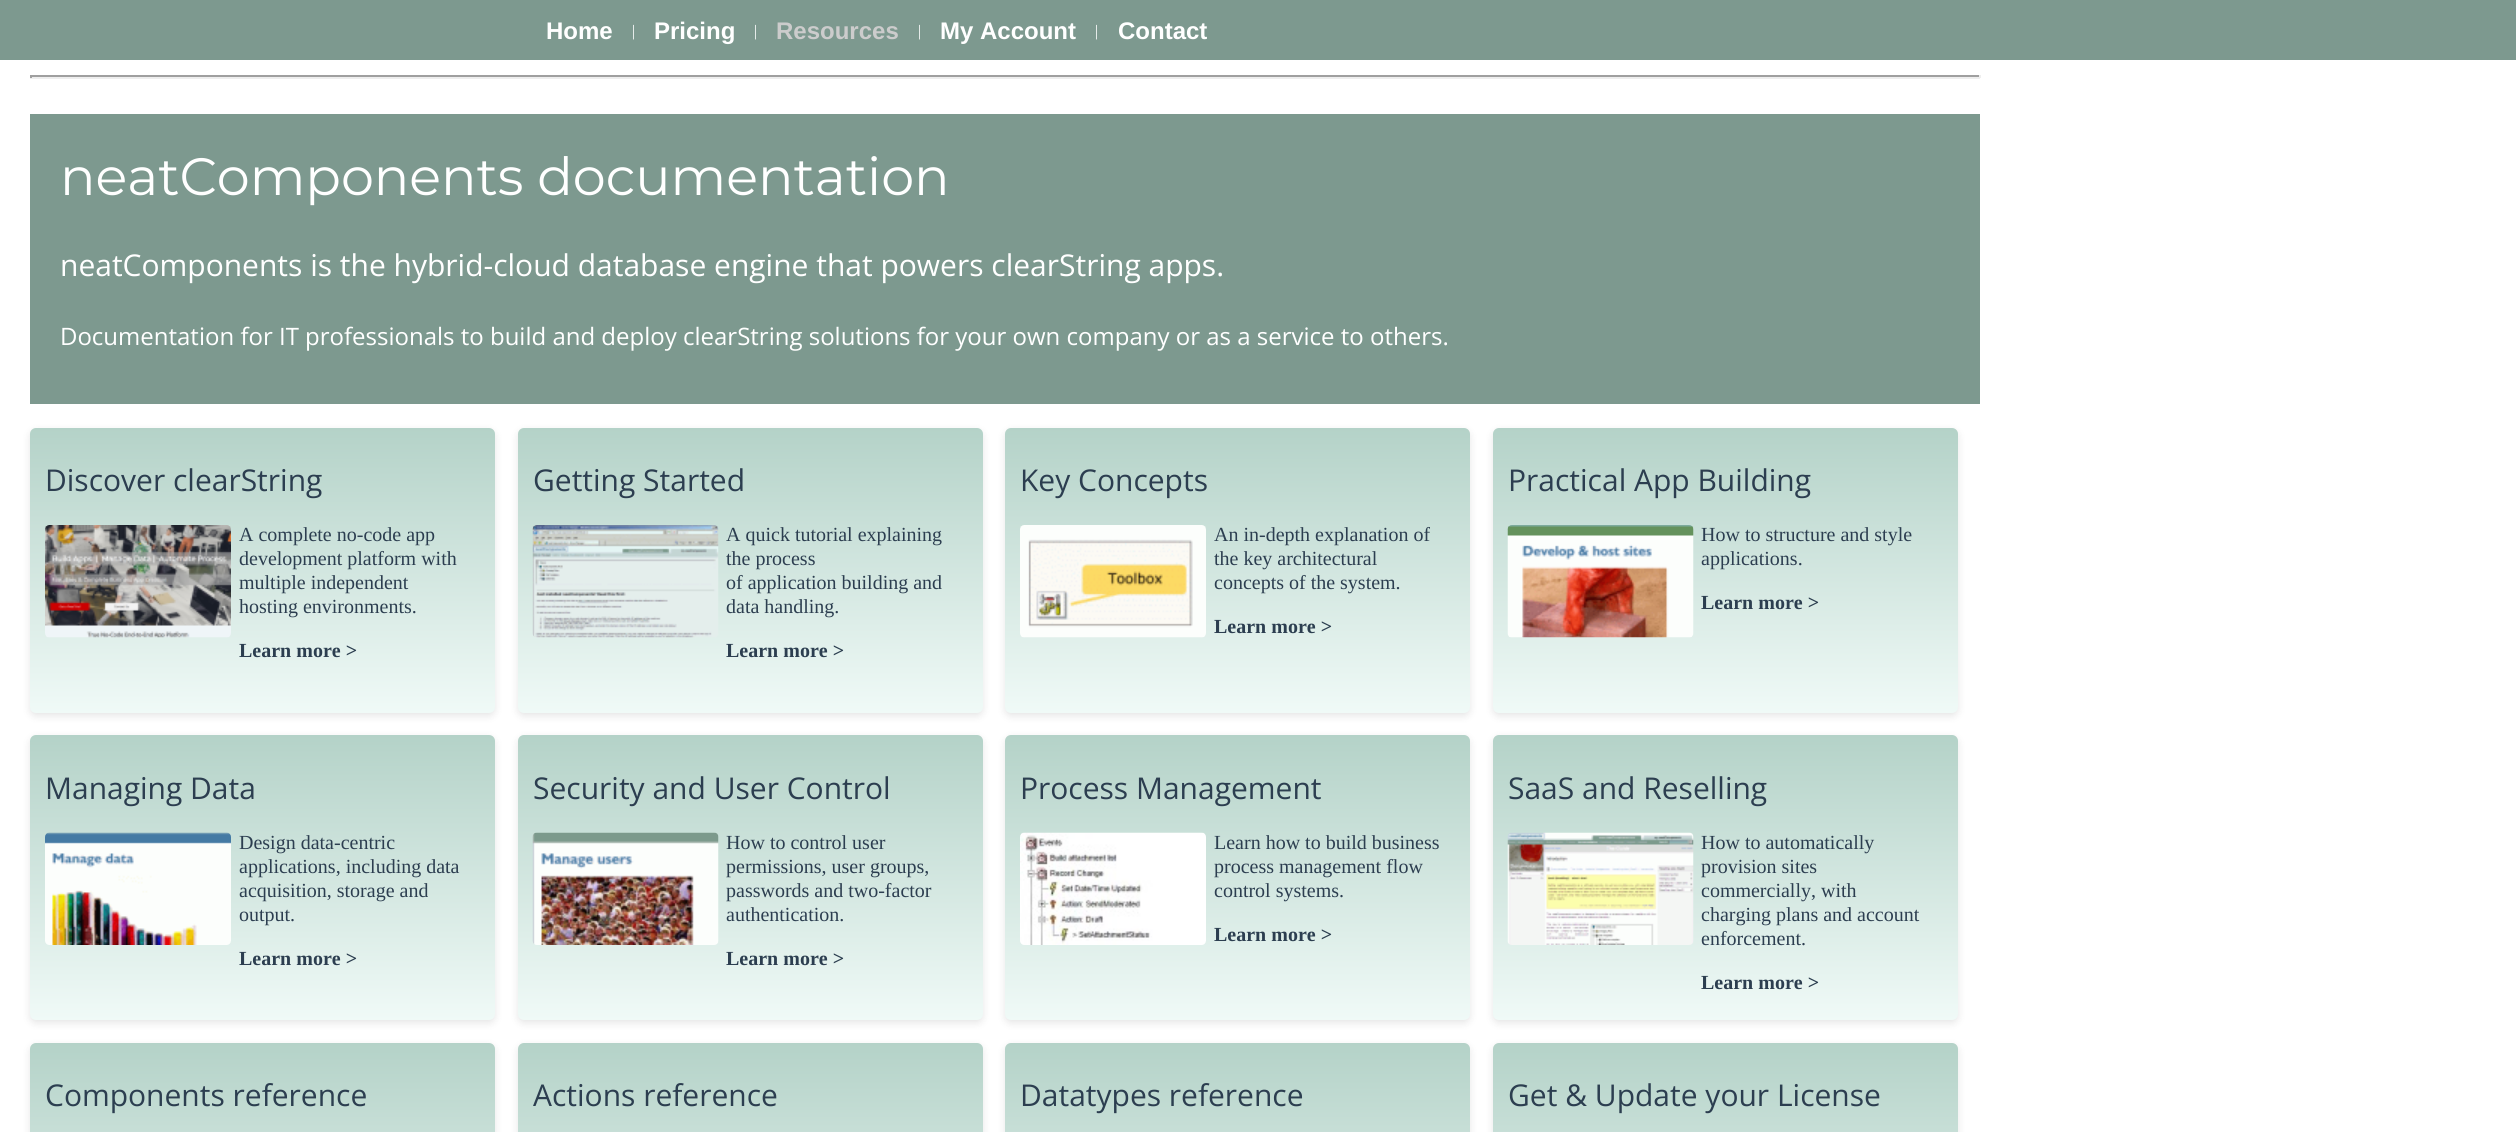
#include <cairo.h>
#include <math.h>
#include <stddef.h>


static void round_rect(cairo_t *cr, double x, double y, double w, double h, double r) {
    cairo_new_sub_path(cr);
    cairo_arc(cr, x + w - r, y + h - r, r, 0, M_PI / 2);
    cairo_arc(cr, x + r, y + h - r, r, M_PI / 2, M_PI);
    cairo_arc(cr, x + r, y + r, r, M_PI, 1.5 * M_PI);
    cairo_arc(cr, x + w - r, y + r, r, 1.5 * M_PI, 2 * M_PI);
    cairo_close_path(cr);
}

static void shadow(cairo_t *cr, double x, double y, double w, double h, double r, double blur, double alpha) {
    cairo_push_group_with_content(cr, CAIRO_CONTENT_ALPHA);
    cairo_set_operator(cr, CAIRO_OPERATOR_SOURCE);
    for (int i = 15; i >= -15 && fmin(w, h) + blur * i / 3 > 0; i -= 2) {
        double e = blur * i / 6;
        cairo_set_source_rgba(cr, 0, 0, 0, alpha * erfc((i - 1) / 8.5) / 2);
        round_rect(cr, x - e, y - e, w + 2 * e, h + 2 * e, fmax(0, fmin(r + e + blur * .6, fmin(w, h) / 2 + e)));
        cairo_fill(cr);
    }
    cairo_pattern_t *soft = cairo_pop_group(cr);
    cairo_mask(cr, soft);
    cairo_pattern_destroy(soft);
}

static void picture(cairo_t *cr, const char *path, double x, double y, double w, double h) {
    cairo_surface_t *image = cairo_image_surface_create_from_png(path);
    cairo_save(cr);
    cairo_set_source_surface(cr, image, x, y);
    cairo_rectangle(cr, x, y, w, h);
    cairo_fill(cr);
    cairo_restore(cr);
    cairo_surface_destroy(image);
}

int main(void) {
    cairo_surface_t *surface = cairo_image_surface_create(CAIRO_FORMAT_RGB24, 2516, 1132);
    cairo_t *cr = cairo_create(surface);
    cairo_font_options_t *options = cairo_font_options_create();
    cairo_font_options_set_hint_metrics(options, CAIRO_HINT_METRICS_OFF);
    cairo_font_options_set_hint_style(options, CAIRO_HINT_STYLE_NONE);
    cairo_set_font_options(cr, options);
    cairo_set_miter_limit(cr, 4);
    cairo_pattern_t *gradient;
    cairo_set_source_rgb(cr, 1, 1, 1);
    cairo_paint(cr);
    cairo_set_source_rgb(cr, 0.49, 0.6, 0.561);
    cairo_rectangle(cr, 0, 0, 2516, 60);
    cairo_fill(cr);
    cairo_select_font_face(cr, "Liberation Sans", CAIRO_FONT_SLANT_NORMAL, CAIRO_FONT_WEIGHT_BOLD);
    cairo_set_font_size(cr, 24);
    cairo_set_source_rgb(cr, 1, 1, 1);
    cairo_move_to(cr, 546, 39);
    cairo_show_text(cr, "Home");
    cairo_select_font_face(cr, "Liberation Serif", CAIRO_FONT_SLANT_NORMAL, CAIRO_FONT_WEIGHT_NORMAL);
    cairo_set_font_size(cr, 16);
    cairo_move_to(cr, 632, 36);
    cairo_show_text(cr, "|");
    cairo_select_font_face(cr, "Liberation Sans", CAIRO_FONT_SLANT_NORMAL, CAIRO_FONT_WEIGHT_BOLD);
    cairo_set_font_size(cr, 24);
    cairo_move_to(cr, 654, 39);
    cairo_show_text(cr, "Pricing");
    cairo_select_font_face(cr, "Liberation Serif", CAIRO_FONT_SLANT_NORMAL, CAIRO_FONT_WEIGHT_NORMAL);
    cairo_set_font_size(cr, 16);
    cairo_move_to(cr, 754, 36);
    cairo_show_text(cr, "|");
    cairo_select_font_face(cr, "Liberation Sans", CAIRO_FONT_SLANT_NORMAL, CAIRO_FONT_WEIGHT_BOLD);
    cairo_set_font_size(cr, 24);
    cairo_set_source_rgb(cr, 0.8, 0.8, 0.8);
    cairo_move_to(cr, 776, 39);
    cairo_show_text(cr, "Resources");
    cairo_select_font_face(cr, "Liberation Serif", CAIRO_FONT_SLANT_NORMAL, CAIRO_FONT_WEIGHT_NORMAL);
    cairo_set_font_size(cr, 16);
    cairo_set_source_rgb(cr, 1, 1, 1);
    cairo_move_to(cr, 918, 36);
    cairo_show_text(cr, "|");
    cairo_select_font_face(cr, "Liberation Sans", CAIRO_FONT_SLANT_NORMAL, CAIRO_FONT_WEIGHT_BOLD);
    cairo_set_font_size(cr, 24);
    cairo_move_to(cr, 940, 39);
    cairo_show_text(cr, "My Account");
    cairo_select_font_face(cr, "Liberation Serif", CAIRO_FONT_SLANT_NORMAL, CAIRO_FONT_WEIGHT_NORMAL);
    cairo_set_font_size(cr, 16);
    cairo_move_to(cr, 1095, 36);
    cairo_show_text(cr, "|");
    cairo_select_font_face(cr, "Liberation Sans", CAIRO_FONT_SLANT_NORMAL, CAIRO_FONT_WEIGHT_BOLD);
    cairo_set_font_size(cr, 24);
    cairo_move_to(cr, 1118, 39);
    cairo_show_text(cr, "Contact");
    cairo_set_source_rgb(cr, 0.624, 0.624, 0.624);
    cairo_rectangle(cr, 30, 75, 1950, 2);
    cairo_fill(cr);
    cairo_set_source_rgb(cr, 0.933, 0.933, 0.933);
    cairo_rectangle(cr, 1979, 75, 2, 3);
    cairo_fill(cr);
    cairo_rectangle(cr, 30, 77, 1950, 2);
    cairo_fill(cr);
    cairo_set_source_rgb(cr, 0.624, 0.624, 0.624);
    cairo_rectangle(cr, 30, 75, 2, 3);
    cairo_fill(cr);
    cairo_set_source_rgb(cr, 0.49, 0.6, 0.561);
    cairo_rectangle(cr, 30, 114, 1950, 290);
    cairo_fill(cr);
    cairo_select_font_face(cr, "Montserrat Thin", CAIRO_FONT_SLANT_NORMAL, CAIRO_FONT_WEIGHT_NORMAL);
    cairo_set_font_size(cr, 52.5);
    cairo_set_source_rgb(cr, 1, 1, 1);
    cairo_move_to(cr, 60, 195);
    cairo_show_text(cr, "neatComponents documentation");
    cairo_select_font_face(cr, "Open Sans", CAIRO_FONT_SLANT_NORMAL, CAIRO_FONT_WEIGHT_NORMAL);
    cairo_set_font_size(cr, 30);
    cairo_move_to(cr, 60, 276);
    cairo_show_text(cr, "neatComponents is the hybrid-cloud database engine that powers clearString apps.");
    cairo_set_font_size(cr, 24);
    cairo_move_to(cr, 60, 345);
    cairo_show_text(cr, "Documentation for IT professionals to build and deploy clearString solutions for your own company or as a service to others.");
    cairo_set_source_rgb(cr, 0, 0, 0);
    shadow(cr, 30, 431, 465, 285, 6, 4, 0.1);
    gradient = cairo_pattern_create_linear(263, 428, 263, 713);
    cairo_pattern_add_color_stop_rgba(gradient, 0, 0.706, 0.824, 0.784, 1);
    cairo_pattern_add_color_stop_rgba(gradient, 1, 0.941, 0.98, 0.969, 1);
    cairo_set_source(cr, gradient);
    cairo_pattern_destroy(gradient);
    round_rect(cr, 30, 428, 465, 285, 6);
    cairo_fill(cr);
    cairo_set_font_size(cr, 30);
    cairo_set_source_rgb(cr, 0.173, 0.243, 0.314);
    cairo_move_to(cr, 45, 491);
    cairo_show_text(cr, "Discover clearString");
    picture(cr, "img1.png", 45, 525, 186, 113);
    cairo_select_font_face(cr, "Liberation Serif", CAIRO_FONT_SLANT_NORMAL, CAIRO_FONT_WEIGHT_NORMAL);
    cairo_set_font_size(cr, 20);
    cairo_move_to(cr, 239, 541);
    cairo_show_text(cr, "A complete no-code app");
    cairo_move_to(cr, 239, 565);
    cairo_show_text(cr, "development platform with");
    cairo_move_to(cr, 239, 589);
    cairo_show_text(cr, "multiple independent");
    cairo_move_to(cr, 239, 613);
    cairo_show_text(cr, "hosting environments.");
    cairo_select_font_face(cr, "Liberation Serif", CAIRO_FONT_SLANT_NORMAL, CAIRO_FONT_WEIGHT_BOLD);
    cairo_move_to(cr, 239, 657);
    cairo_show_text(cr, "Learn more >");
    cairo_set_source_rgb(cr, 0, 0, 0);
    shadow(cr, 518, 431, 465, 285, 6, 4, 0.1);
    gradient = cairo_pattern_create_linear(750, 428, 750, 713);
    cairo_pattern_add_color_stop_rgba(gradient, 0, 0.706, 0.824, 0.784, 1);
    cairo_pattern_add_color_stop_rgba(gradient, 1, 0.941, 0.98, 0.969, 1);
    cairo_set_source(cr, gradient);
    cairo_pattern_destroy(gradient);
    round_rect(cr, 518, 428, 465, 285, 6);
    cairo_fill(cr);
    cairo_select_font_face(cr, "Open Sans", CAIRO_FONT_SLANT_NORMAL, CAIRO_FONT_WEIGHT_NORMAL);
    cairo_set_font_size(cr, 30);
    cairo_set_source_rgb(cr, 0.173, 0.243, 0.314);
    cairo_move_to(cr, 533, 491);
    cairo_show_text(cr, "Getting Started");
    picture(cr, "img2.png", 532, 525, 187, 113);
    cairo_select_font_face(cr, "Liberation Serif", CAIRO_FONT_SLANT_NORMAL, CAIRO_FONT_WEIGHT_NORMAL);
    cairo_set_font_size(cr, 20);
    cairo_move_to(cr, 726, 541);
    cairo_show_text(cr, "A quick tutorial explaining");
    cairo_move_to(cr, 726, 565);
    cairo_show_text(cr, "the process");
    cairo_move_to(cr, 726, 589);
    cairo_show_text(cr, "of application building and");
    cairo_move_to(cr, 726, 613);
    cairo_show_text(cr, "data handling.");
    cairo_select_font_face(cr, "Liberation Serif", CAIRO_FONT_SLANT_NORMAL, CAIRO_FONT_WEIGHT_BOLD);
    cairo_move_to(cr, 726, 657);
    cairo_show_text(cr, "Learn more >");
    cairo_set_source_rgb(cr, 0, 0, 0);
    shadow(cr, 1005, 431, 465, 285, 6, 4, 0.1);
    gradient = cairo_pattern_create_linear(1238, 428, 1238, 713);
    cairo_pattern_add_color_stop_rgba(gradient, 0, 0.706, 0.824, 0.784, 1);
    cairo_pattern_add_color_stop_rgba(gradient, 1, 0.941, 0.98, 0.969, 1);
    cairo_set_source(cr, gradient);
    cairo_pattern_destroy(gradient);
    round_rect(cr, 1005, 428, 465, 285, 6);
    cairo_fill(cr);
    cairo_select_font_face(cr, "Open Sans", CAIRO_FONT_SLANT_NORMAL, CAIRO_FONT_WEIGHT_NORMAL);
    cairo_set_font_size(cr, 30);
    cairo_set_source_rgb(cr, 0.173, 0.243, 0.314);
    cairo_move_to(cr, 1020, 491);
    cairo_show_text(cr, "Key Concepts");
    picture(cr, "img3.png", 1020, 525, 186, 113);
    cairo_select_font_face(cr, "Liberation Serif", CAIRO_FONT_SLANT_NORMAL, CAIRO_FONT_WEIGHT_NORMAL);
    cairo_set_font_size(cr, 20);
    cairo_move_to(cr, 1214, 541);
    cairo_show_text(cr, "An in-depth explanation of");
    cairo_move_to(cr, 1214, 565);
    cairo_show_text(cr, "the key architectural");
    cairo_move_to(cr, 1214, 589);
    cairo_show_text(cr, "concepts of the system.");
    cairo_select_font_face(cr, "Liberation Serif", CAIRO_FONT_SLANT_NORMAL, CAIRO_FONT_WEIGHT_BOLD);
    cairo_move_to(cr, 1214, 633);
    cairo_show_text(cr, "Learn more >");
    cairo_set_source_rgb(cr, 0, 0, 0);
    shadow(cr, 1493, 431, 465, 285, 6, 4, 0.1);
    gradient = cairo_pattern_create_linear(1725, 428, 1725, 713);
    cairo_pattern_add_color_stop_rgba(gradient, 0, 0.706, 0.824, 0.784, 1);
    cairo_pattern_add_color_stop_rgba(gradient, 1, 0.941, 0.98, 0.969, 1);
    cairo_set_source(cr, gradient);
    cairo_pattern_destroy(gradient);
    round_rect(cr, 1493, 428, 465, 285, 6);
    cairo_fill(cr);
    cairo_select_font_face(cr, "Open Sans", CAIRO_FONT_SLANT_NORMAL, CAIRO_FONT_WEIGHT_NORMAL);
    cairo_set_font_size(cr, 30);
    cairo_set_source_rgb(cr, 0.173, 0.243, 0.314);
    cairo_move_to(cr, 1508, 491);
    cairo_show_text(cr, "Practical App Building");
    picture(cr, "img4.png", 1507, 525, 187, 113);
    cairo_select_font_face(cr, "Liberation Serif", CAIRO_FONT_SLANT_NORMAL, CAIRO_FONT_WEIGHT_NORMAL);
    cairo_set_font_size(cr, 20);
    cairo_move_to(cr, 1701, 541);
    cairo_show_text(cr, "How to structure and style");
    cairo_move_to(cr, 1701, 565);
    cairo_show_text(cr, "applications.");
    cairo_select_font_face(cr, "Liberation Serif", CAIRO_FONT_SLANT_NORMAL, CAIRO_FONT_WEIGHT_BOLD);
    cairo_move_to(cr, 1701, 609);
    cairo_show_text(cr, "Learn more >");
    cairo_set_source_rgb(cr, 0, 0, 0);
    shadow(cr, 30, 738, 465, 285, 6, 4, 0.1);
    gradient = cairo_pattern_create_linear(263, 735, 263, 1020);
    cairo_pattern_add_color_stop_rgba(gradient, 0, 0.706, 0.824, 0.784, 1);
    cairo_pattern_add_color_stop_rgba(gradient, 1, 0.941, 0.98, 0.969, 1);
    cairo_set_source(cr, gradient);
    cairo_pattern_destroy(gradient);
    round_rect(cr, 30, 735, 465, 285, 6);
    cairo_fill(cr);
    cairo_select_font_face(cr, "Open Sans", CAIRO_FONT_SLANT_NORMAL, CAIRO_FONT_WEIGHT_NORMAL);
    cairo_set_font_size(cr, 30);
    cairo_set_source_rgb(cr, 0.173, 0.243, 0.314);
    cairo_move_to(cr, 45, 799);
    cairo_show_text(cr, "Managing Data");
    picture(cr, "img5.png", 45, 832, 186, 113);
    cairo_select_font_face(cr, "Liberation Serif", CAIRO_FONT_SLANT_NORMAL, CAIRO_FONT_WEIGHT_NORMAL);
    cairo_set_font_size(cr, 20);
    cairo_move_to(cr, 239, 849);
    cairo_show_text(cr, "Design data-centric");
    cairo_move_to(cr, 239, 873);
    cairo_show_text(cr, "applications, including data");
    cairo_move_to(cr, 239, 897);
    cairo_show_text(cr, "acquisition, storage and");
    cairo_move_to(cr, 239, 921);
    cairo_show_text(cr, "output.");
    cairo_select_font_face(cr, "Liberation Serif", CAIRO_FONT_SLANT_NORMAL, CAIRO_FONT_WEIGHT_BOLD);
    cairo_move_to(cr, 239, 965);
    cairo_show_text(cr, "Learn more >");
    cairo_set_source_rgb(cr, 0, 0, 0);
    shadow(cr, 518, 738, 465, 285, 6, 4, 0.1);
    gradient = cairo_pattern_create_linear(750, 735, 750, 1020);
    cairo_pattern_add_color_stop_rgba(gradient, 0, 0.706, 0.824, 0.784, 1);
    cairo_pattern_add_color_stop_rgba(gradient, 1, 0.941, 0.98, 0.969, 1);
    cairo_set_source(cr, gradient);
    cairo_pattern_destroy(gradient);
    round_rect(cr, 518, 735, 465, 285, 6);
    cairo_fill(cr);
    cairo_select_font_face(cr, "Open Sans", CAIRO_FONT_SLANT_NORMAL, CAIRO_FONT_WEIGHT_NORMAL);
    cairo_set_font_size(cr, 30);
    cairo_set_source_rgb(cr, 0.173, 0.243, 0.314);
    cairo_move_to(cr, 533, 799);
    cairo_show_text(cr, "Security and User Control");
    picture(cr, "img6.png", 532, 832, 187, 113);
    cairo_select_font_face(cr, "Liberation Serif", CAIRO_FONT_SLANT_NORMAL, CAIRO_FONT_WEIGHT_NORMAL);
    cairo_set_font_size(cr, 20);
    cairo_move_to(cr, 726, 849);
    cairo_show_text(cr, "How to control user");
    cairo_move_to(cr, 726, 873);
    cairo_show_text(cr, "permissions, user groups,");
    cairo_move_to(cr, 726, 897);
    cairo_show_text(cr, "passwords and two-factor");
    cairo_move_to(cr, 726, 921);
    cairo_show_text(cr, "authentication.");
    cairo_select_font_face(cr, "Liberation Serif", CAIRO_FONT_SLANT_NORMAL, CAIRO_FONT_WEIGHT_BOLD);
    cairo_move_to(cr, 726, 965);
    cairo_show_text(cr, "Learn more >");
    cairo_set_source_rgb(cr, 0, 0, 0);
    shadow(cr, 1005, 738, 465, 285, 6, 4, 0.1);
    gradient = cairo_pattern_create_linear(1238, 735, 1238, 1020);
    cairo_pattern_add_color_stop_rgba(gradient, 0, 0.706, 0.824, 0.784, 1);
    cairo_pattern_add_color_stop_rgba(gradient, 1, 0.941, 0.98, 0.969, 1);
    cairo_set_source(cr, gradient);
    cairo_pattern_destroy(gradient);
    round_rect(cr, 1005, 735, 465, 285, 6);
    cairo_fill(cr);
    cairo_select_font_face(cr, "Open Sans", CAIRO_FONT_SLANT_NORMAL, CAIRO_FONT_WEIGHT_NORMAL);
    cairo_set_font_size(cr, 30);
    cairo_set_source_rgb(cr, 0.173, 0.243, 0.314);
    cairo_move_to(cr, 1020, 799);
    cairo_show_text(cr, "Process Management");
    picture(cr, "img7.png", 1020, 832, 186, 113);
    cairo_select_font_face(cr, "Liberation Serif", CAIRO_FONT_SLANT_NORMAL, CAIRO_FONT_WEIGHT_NORMAL);
    cairo_set_font_size(cr, 20);
    cairo_move_to(cr, 1214, 849);
    cairo_show_text(cr, "Learn how to build business");
    cairo_move_to(cr, 1214, 873);
    cairo_show_text(cr, "process management flow");
    cairo_move_to(cr, 1214, 897);
    cairo_show_text(cr, "control systems.");
    cairo_select_font_face(cr, "Liberation Serif", CAIRO_FONT_SLANT_NORMAL, CAIRO_FONT_WEIGHT_BOLD);
    cairo_move_to(cr, 1214, 941);
    cairo_show_text(cr, "Learn more >");
    cairo_set_source_rgb(cr, 0, 0, 0);
    shadow(cr, 1493, 738, 465, 285, 6, 4, 0.1);
    gradient = cairo_pattern_create_linear(1725, 735, 1725, 1020);
    cairo_pattern_add_color_stop_rgba(gradient, 0, 0.706, 0.824, 0.784, 1);
    cairo_pattern_add_color_stop_rgba(gradient, 1, 0.941, 0.98, 0.969, 1);
    cairo_set_source(cr, gradient);
    cairo_pattern_destroy(gradient);
    round_rect(cr, 1493, 735, 465, 285, 6);
    cairo_fill(cr);
    cairo_select_font_face(cr, "Open Sans", CAIRO_FONT_SLANT_NORMAL, CAIRO_FONT_WEIGHT_NORMAL);
    cairo_set_font_size(cr, 30);
    cairo_set_source_rgb(cr, 0.173, 0.243, 0.314);
    cairo_move_to(cr, 1508, 799);
    cairo_show_text(cr, "SaaS and Reselling");
    picture(cr, "img8.png", 1507, 832, 187, 113);
    cairo_select_font_face(cr, "Liberation Serif", CAIRO_FONT_SLANT_NORMAL, CAIRO_FONT_WEIGHT_NORMAL);
    cairo_set_font_size(cr, 20);
    cairo_move_to(cr, 1701, 849);
    cairo_show_text(cr, "How to automatically");
    cairo_move_to(cr, 1701, 873);
    cairo_show_text(cr, "provision sites");
    cairo_move_to(cr, 1701, 897);
    cairo_show_text(cr, "commercially, with");
    cairo_move_to(cr, 1701, 921);
    cairo_show_text(cr, "charging plans and account");
    cairo_move_to(cr, 1701, 945);
    cairo_show_text(cr, "enforcement.");
    cairo_select_font_face(cr, "Liberation Serif", CAIRO_FONT_SLANT_NORMAL, CAIRO_FONT_WEIGHT_BOLD);
    cairo_move_to(cr, 1701, 989);
    cairo_show_text(cr, "Learn more >");
    cairo_set_source_rgb(cr, 0, 0, 0);
    shadow(cr, 30, 1046, 465, 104, 6, 4, 0.1);
    gradient = cairo_pattern_create_linear(263, 1043, 263, 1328);
    cairo_pattern_add_color_stop_rgba(gradient, 0, 0.706, 0.824, 0.784, 1);
    cairo_pattern_add_color_stop_rgba(gradient, 1, 0.941, 0.98, 0.969, 1);
    cairo_set_source(cr, gradient);
    cairo_pattern_destroy(gradient);
    round_rect(cr, 30, 1043, 465, 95, 6);
    cairo_fill(cr);
    cairo_select_font_face(cr, "Open Sans", CAIRO_FONT_SLANT_NORMAL, CAIRO_FONT_WEIGHT_NORMAL);
    cairo_set_font_size(cr, 30);
    cairo_set_source_rgb(cr, 0.173, 0.243, 0.314);
    cairo_move_to(cr, 45, 1106);
    cairo_show_text(cr, "Components reference");
    cairo_set_source_rgb(cr, 0, 0, 0);
    shadow(cr, 518, 1046, 465, 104, 6, 4, 0.1);
    gradient = cairo_pattern_create_linear(750, 1043, 750, 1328);
    cairo_pattern_add_color_stop_rgba(gradient, 0, 0.706, 0.824, 0.784, 1);
    cairo_pattern_add_color_stop_rgba(gradient, 1, 0.941, 0.98, 0.969, 1);
    cairo_set_source(cr, gradient);
    cairo_pattern_destroy(gradient);
    round_rect(cr, 518, 1043, 465, 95, 6);
    cairo_fill(cr);
    cairo_set_source_rgb(cr, 0.173, 0.243, 0.314);
    cairo_move_to(cr, 533, 1106);
    cairo_show_text(cr, "Actions reference");
    cairo_set_source_rgb(cr, 0, 0, 0);
    shadow(cr, 1005, 1046, 465, 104, 6, 4, 0.1);
    gradient = cairo_pattern_create_linear(1238, 1043, 1238, 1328);
    cairo_pattern_add_color_stop_rgba(gradient, 0, 0.706, 0.824, 0.784, 1);
    cairo_pattern_add_color_stop_rgba(gradient, 1, 0.941, 0.98, 0.969, 1);
    cairo_set_source(cr, gradient);
    cairo_pattern_destroy(gradient);
    round_rect(cr, 1005, 1043, 465, 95, 6);
    cairo_fill(cr);
    cairo_set_source_rgb(cr, 0.173, 0.243, 0.314);
    cairo_move_to(cr, 1020, 1106);
    cairo_show_text(cr, "Datatypes reference");
    cairo_set_source_rgb(cr, 0, 0, 0);
    shadow(cr, 1493, 1046, 465, 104, 6, 4, 0.1);
    gradient = cairo_pattern_create_linear(1725, 1043, 1725, 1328);
    cairo_pattern_add_color_stop_rgba(gradient, 0, 0.706, 0.824, 0.784, 1);
    cairo_pattern_add_color_stop_rgba(gradient, 1, 0.941, 0.98, 0.969, 1);
    cairo_set_source(cr, gradient);
    cairo_pattern_destroy(gradient);
    round_rect(cr, 1493, 1043, 465, 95, 6);
    cairo_fill(cr);
    cairo_set_source_rgb(cr, 0.173, 0.243, 0.314);
    cairo_move_to(cr, 1508, 1106);
    cairo_show_text(cr, "Get & Update your License");
    cairo_surface_write_to_png(surface, "page.png");
    cairo_font_options_destroy(options);
    cairo_destroy(cr);
    cairo_surface_destroy(surface);
    return 0;
}
